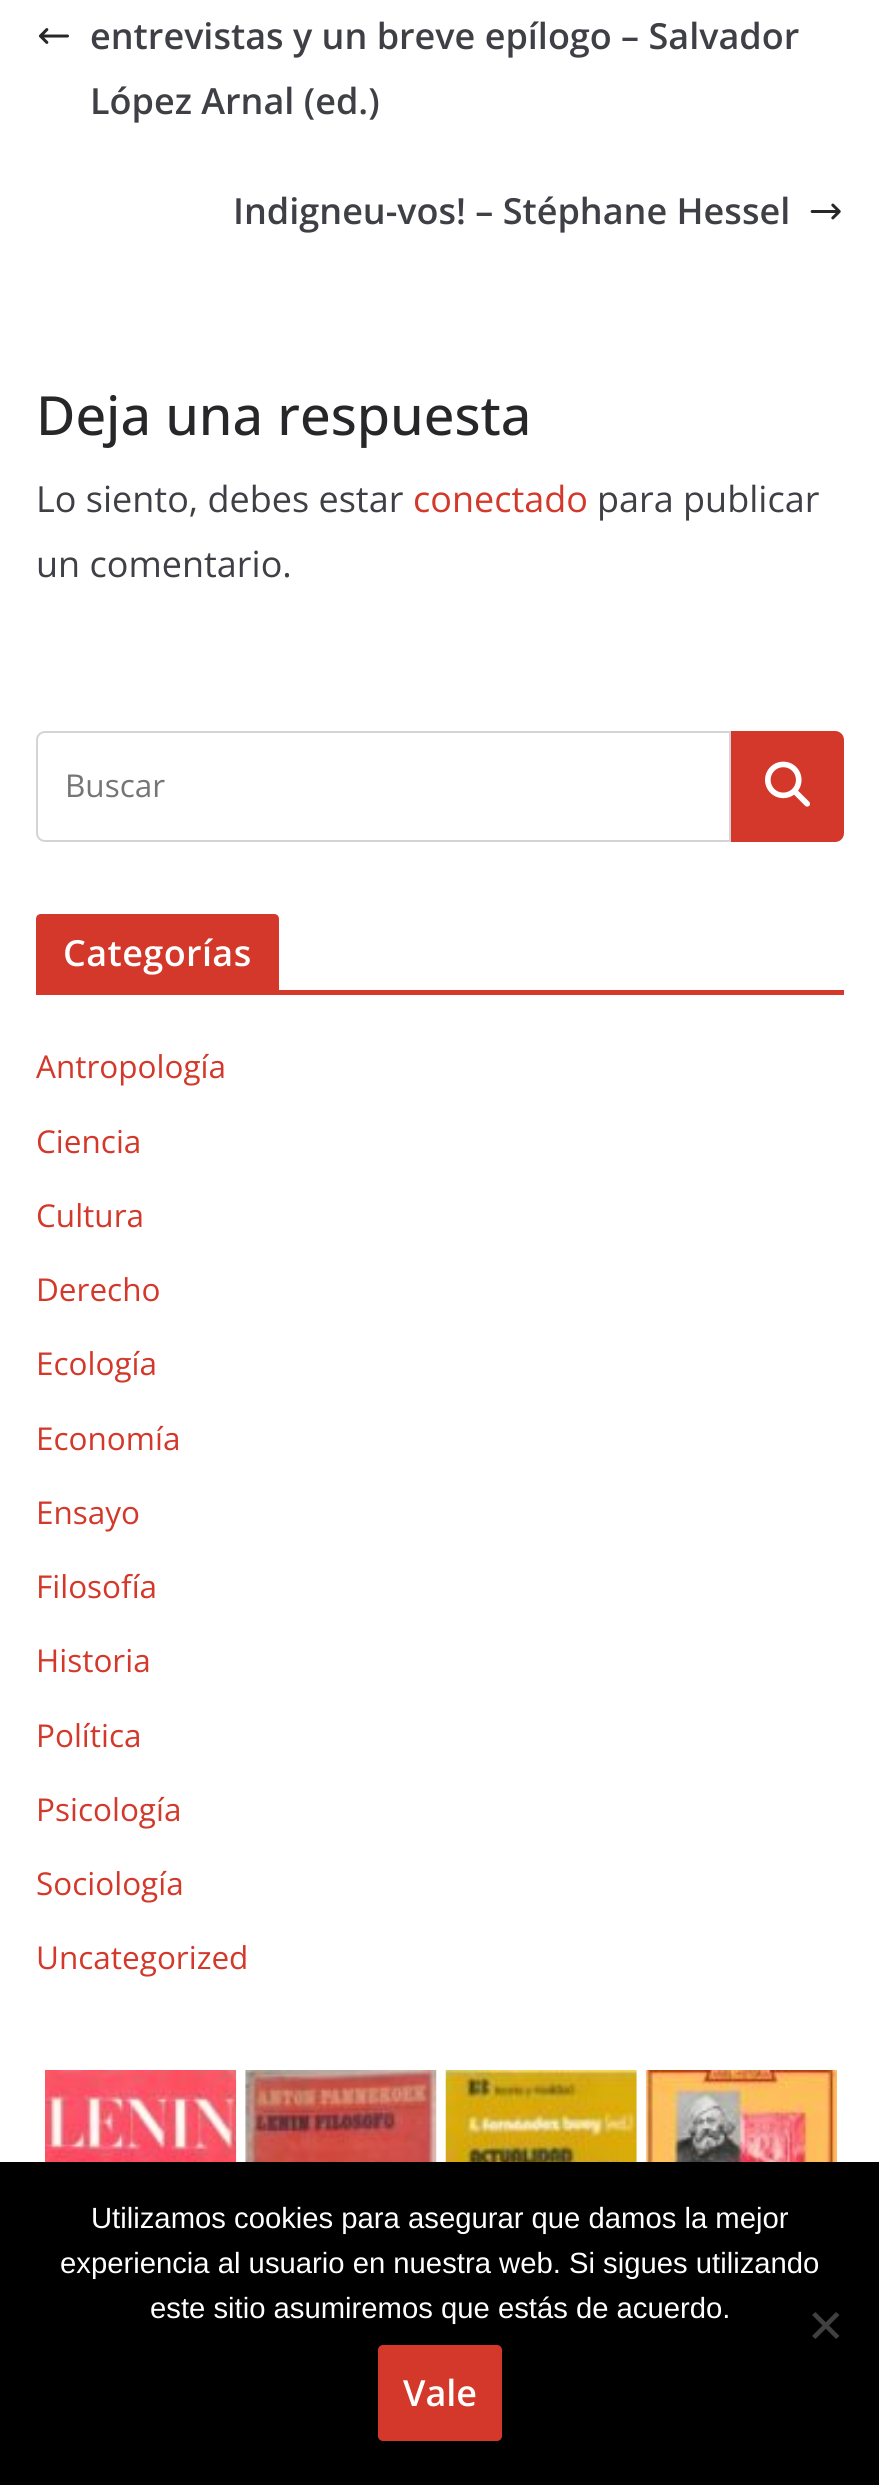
#include <cairo.h>
#include <math.h>
#include <stddef.h>


static void spaced_text(cairo_t *cr, double x, double y, const char *s, double letter, double word) {
    cairo_move_to(cr, x, y);
    while (*s) {
        char ch[5] = {0};
        int n = 0;
        do ch[n++] = *s++; while ((*s & 0xC0) == 0x80);
        cairo_show_text(cr, ch);
        cairo_rel_move_to(cr, letter + word * (*ch == ' '), 0);
    }
}

static void round_rect(cairo_t *cr, double x, double y, double w, double h, double r) {
    cairo_new_sub_path(cr);
    cairo_arc(cr, x + w - r, y + h - r, r, 0, M_PI / 2);
    cairo_arc(cr, x + r, y + h - r, r, M_PI / 2, M_PI);
    cairo_arc(cr, x + r, y + r, r, M_PI, 1.5 * M_PI);
    cairo_arc(cr, x + w - r, y + r, r, 1.5 * M_PI, 2 * M_PI);
    cairo_close_path(cr);
}

static void picture(cairo_t *cr, const char *path, double x, double y, double w, double h) {
    cairo_surface_t *image = cairo_image_surface_create_from_png(path);
    cairo_save(cr);
    cairo_set_source_surface(cr, image, x, y);
    cairo_rectangle(cr, x, y, w, h);
    cairo_fill(cr);
    cairo_restore(cr);
    cairo_surface_destroy(image);
}

int main(void) {
    cairo_surface_t *surface = cairo_image_surface_create(CAIRO_FORMAT_RGB24, 879, 2485);
    cairo_t *cr = cairo_create(surface);
    cairo_font_options_t *options = cairo_font_options_create();
    cairo_font_options_set_hint_metrics(options, CAIRO_HINT_METRICS_OFF);
    cairo_font_options_set_hint_style(options, CAIRO_HINT_STYLE_NONE);
    cairo_set_font_options(cr, options);
    cairo_set_miter_limit(cr, 4);
    cairo_set_source_rgb(cr, 1, 1, 1);
    cairo_paint(cr);
    picture(cr, "img1.png", 38, 28, 31, 16);
    cairo_select_font_face(cr, "Open Sans SemiBold", CAIRO_FONT_SLANT_NORMAL, CAIRO_FONT_WEIGHT_NORMAL);
    cairo_set_font_size(cr, 36);
    cairo_set_source_rgb(cr, 0.247, 0.247, 0.275);
    cairo_move_to(cr, 90, 49);
    cairo_show_text(cr, "entrevistas y un breve epílogo – Salvador");
    cairo_move_to(cr, 90, 114);
    cairo_show_text(cr, "López Arnal (ed.)");
    cairo_move_to(cr, 233, 224);
    cairo_show_text(cr, "Indigneu-vos! – Stéphane Hessel");
    picture(cr, "img2.png", 810, 203, 31, 17);
    cairo_select_font_face(cr, "Open Sans Medium", CAIRO_FONT_SLANT_NORMAL, CAIRO_FONT_WEIGHT_NORMAL);
    cairo_set_font_size(cr, 54);
    cairo_set_source_rgb(cr, 0.153, 0.153, 0.165);
    cairo_move_to(cr, 36, 435);
    cairo_show_text(cr, "Deja una respuesta");
    cairo_select_font_face(cr, "Open Sans", CAIRO_FONT_SLANT_NORMAL, CAIRO_FONT_WEIGHT_NORMAL);
    cairo_set_font_size(cr, 36);
    cairo_set_source_rgb(cr, 0.247, 0.247, 0.275);
    cairo_move_to(cr, 36, 512);
    cairo_show_text(cr, "Lo siento, debes estar");
    cairo_set_source_rgb(cr, 0.827, 0.22, 0.165);
    cairo_move_to(cr, 413, 512);
    cairo_show_text(cr, "conectado");
    cairo_set_source_rgb(cr, 0.247, 0.247, 0.275);
    cairo_move_to(cr, 597, 512);
    cairo_show_text(cr, "para publicar");
    cairo_move_to(cr, 36, 577);
    cairo_show_text(cr, "un comentario.");
    cairo_new_path(cr);
    cairo_move_to(cr, 45, 732);
    cairo_line_to(cr, 730, 732);
    cairo_line_to(cr, 730, 841);
    cairo_line_to(cr, 45, 841);
    cairo_curve_to(cr, 40.5, 841, 37, 837.5, 37, 833);
    cairo_line_to(cr, 37, 740);
    cairo_curve_to(cr, 37, 735.5, 40.5, 732, 45, 732);
    cairo_close_path(cr);
    cairo_set_source_rgb(cr, 0.831, 0.831, 0.847);
    cairo_stroke(cr);
    cairo_set_font_size(cr, 31.5);
    cairo_set_source_rgb(cr, 0.459, 0.459, 0.459);
    cairo_move_to(cr, 65, 797);
    cairo_show_text(cr, "Buscar");
    cairo_set_source_rgb(cr, 0.827, 0.22, 0.165);
    cairo_new_path(cr);
    cairo_move_to(cr, 732, 732);
    cairo_line_to(cr, 835, 732);
    cairo_curve_to(cr, 839.5, 732, 843, 735.5, 843, 740);
    cairo_line_to(cr, 843, 833);
    cairo_curve_to(cr, 843, 837.5, 839.5, 841, 835, 841);
    cairo_line_to(cr, 732, 841);
    cairo_close_path(cr);
    cairo_fill_preserve(cr);
    cairo_stroke(cr);
    picture(cr, "img3.png", 765, 761, 45, 46);
    cairo_rectangle(cr, 36, 990, 808, 5);
    cairo_fill(cr);
    cairo_new_path(cr);
    cairo_move_to(cr, 41, 914);
    cairo_line_to(cr, 274, 914);
    cairo_curve_to(cr, 277, 914, 279, 916, 279, 919);
    cairo_line_to(cr, 279, 990);
    cairo_line_to(cr, 36, 990);
    cairo_line_to(cr, 36, 919);
    cairo_curve_to(cr, 36, 916, 38, 914, 41, 914);
    cairo_close_path(cr);
    cairo_fill(cr);
    cairo_select_font_face(cr, "Open Sans SemiBold", CAIRO_FONT_SLANT_NORMAL, CAIRO_FONT_WEIGHT_NORMAL);
    cairo_set_font_size(cr, 36);
    cairo_set_source_rgb(cr, 1, 1, 1);
    spaced_text(cr, 63, 966, "Categorías", 0.4, 0);
    cairo_select_font_face(cr, "Open Sans", CAIRO_FONT_SLANT_NORMAL, CAIRO_FONT_WEIGHT_NORMAL);
    cairo_set_font_size(cr, 31.5);
    cairo_set_source_rgb(cr, 0.827, 0.22, 0.165);
    cairo_move_to(cr, 36, 1078);
    cairo_show_text(cr, "Antropología");
    cairo_move_to(cr, 36, 1153);
    cairo_show_text(cr, "Ciencia");
    cairo_move_to(cr, 36, 1227);
    cairo_show_text(cr, "Cultura");
    cairo_move_to(cr, 36, 1301);
    cairo_show_text(cr, "Derecho");
    cairo_move_to(cr, 36, 1375);
    cairo_show_text(cr, "Ecología");
    cairo_move_to(cr, 36, 1450);
    cairo_show_text(cr, "Economía");
    cairo_move_to(cr, 36, 1524);
    cairo_show_text(cr, "Ensayo");
    cairo_move_to(cr, 36, 1598);
    cairo_show_text(cr, "Filosofía");
    cairo_move_to(cr, 36, 1672);
    cairo_show_text(cr, "Historia");
    cairo_move_to(cr, 36, 1747);
    cairo_show_text(cr, "Política");
    cairo_move_to(cr, 36, 1821);
    cairo_show_text(cr, "Psicología");
    cairo_move_to(cr, 36, 1895);
    cairo_show_text(cr, "Sociología");
    cairo_move_to(cr, 36, 1969);
    cairo_show_text(cr, "Uncategorized");
    picture(cr, "img4.png", 45, 2070, 192, 92);
    picture(cr, "img5.png", 245, 2070, 192, 92);
    picture(cr, "img6.png", 445, 2070, 192, 92);
    picture(cr, "img7.png", 645, 2070, 192, 92);
    cairo_set_source_rgb(cr, 0, 0, 0);
    cairo_rectangle(cr, 0, 2162, 879, 323);
    cairo_fill(cr);
    cairo_select_font_face(cr, "Liberation Sans", CAIRO_FONT_SLANT_NORMAL, CAIRO_FONT_WEIGHT_NORMAL);
    cairo_set_font_size(cr, 29.25);
    cairo_set_source_rgb(cr, 1, 1, 1);
    cairo_move_to(cr, 91, 2228);
    cairo_show_text(cr, "Utilizamos cookies para asegurar que damos la mejor");
    cairo_move_to(cr, 60, 2273);
    cairo_show_text(cr, "experiencia al usuario en nuestra web. Si sigues utilizando");
    cairo_move_to(cr, 150, 2318);
    cairo_show_text(cr, "este sitio asumiremos que estás de acuerdo.");
    cairo_set_source_rgb(cr, 0.251, 0.251, 0.251);
    cairo_new_path(cr);
    cairo_move_to(cr, 836, 2312);
    cairo_line_to(cr, 839.5, 2315);
    cairo_line_to(cr, 815.5, 2339);
    cairo_line_to(cr, 812, 2336);
    cairo_close_path(cr);
    cairo_fill(cr);
    cairo_new_path(cr);
    cairo_move_to(cr, 812, 2315);
    cairo_line_to(cr, 815.5, 2312);
    cairo_line_to(cr, 839.5, 2336);
    cairo_line_to(cr, 836, 2339);
    cairo_close_path(cr);
    cairo_fill(cr);
    cairo_set_source_rgb(cr, 0.827, 0.22, 0.165);
    round_rect(cr, 379, 2346, 122, 94, 4);
    cairo_fill_preserve(cr);
    cairo_stroke(cr);
    cairo_select_font_face(cr, "Open Sans SemiBold", CAIRO_FONT_SLANT_NORMAL, CAIRO_FONT_WEIGHT_NORMAL);
    cairo_set_font_size(cr, 36);
    cairo_set_source_rgb(cr, 1, 1, 1);
    cairo_move_to(cr, 403, 2406);
    cairo_show_text(cr, "Vale");
    cairo_surface_write_to_png(surface, "page.png");
    cairo_font_options_destroy(options);
    cairo_destroy(cr);
    cairo_surface_destroy(surface);
    return 0;
}
